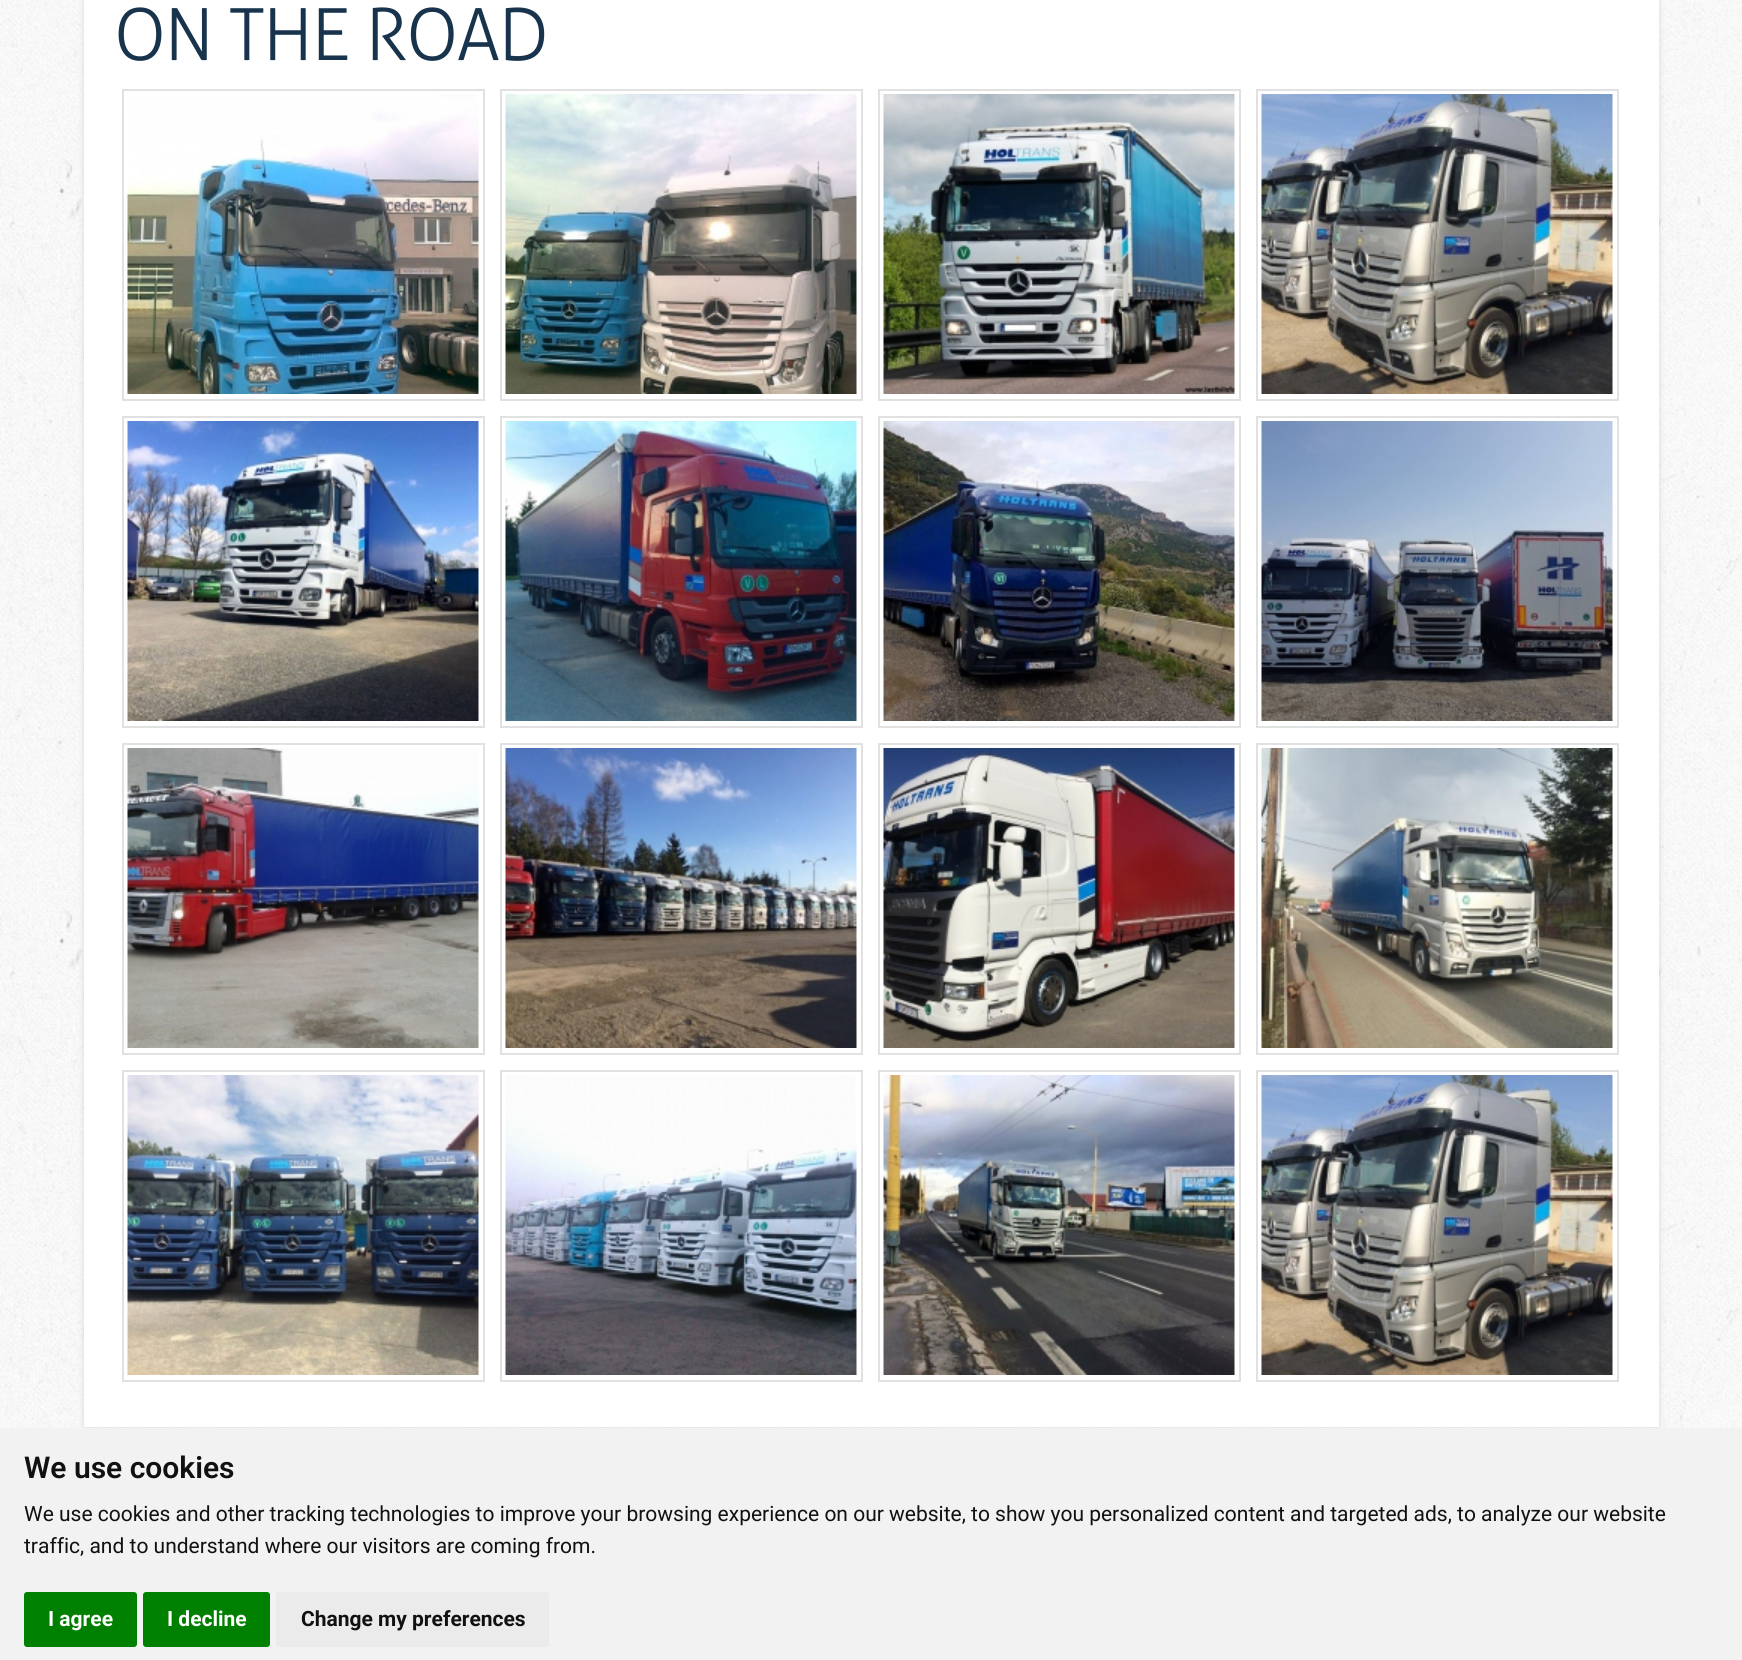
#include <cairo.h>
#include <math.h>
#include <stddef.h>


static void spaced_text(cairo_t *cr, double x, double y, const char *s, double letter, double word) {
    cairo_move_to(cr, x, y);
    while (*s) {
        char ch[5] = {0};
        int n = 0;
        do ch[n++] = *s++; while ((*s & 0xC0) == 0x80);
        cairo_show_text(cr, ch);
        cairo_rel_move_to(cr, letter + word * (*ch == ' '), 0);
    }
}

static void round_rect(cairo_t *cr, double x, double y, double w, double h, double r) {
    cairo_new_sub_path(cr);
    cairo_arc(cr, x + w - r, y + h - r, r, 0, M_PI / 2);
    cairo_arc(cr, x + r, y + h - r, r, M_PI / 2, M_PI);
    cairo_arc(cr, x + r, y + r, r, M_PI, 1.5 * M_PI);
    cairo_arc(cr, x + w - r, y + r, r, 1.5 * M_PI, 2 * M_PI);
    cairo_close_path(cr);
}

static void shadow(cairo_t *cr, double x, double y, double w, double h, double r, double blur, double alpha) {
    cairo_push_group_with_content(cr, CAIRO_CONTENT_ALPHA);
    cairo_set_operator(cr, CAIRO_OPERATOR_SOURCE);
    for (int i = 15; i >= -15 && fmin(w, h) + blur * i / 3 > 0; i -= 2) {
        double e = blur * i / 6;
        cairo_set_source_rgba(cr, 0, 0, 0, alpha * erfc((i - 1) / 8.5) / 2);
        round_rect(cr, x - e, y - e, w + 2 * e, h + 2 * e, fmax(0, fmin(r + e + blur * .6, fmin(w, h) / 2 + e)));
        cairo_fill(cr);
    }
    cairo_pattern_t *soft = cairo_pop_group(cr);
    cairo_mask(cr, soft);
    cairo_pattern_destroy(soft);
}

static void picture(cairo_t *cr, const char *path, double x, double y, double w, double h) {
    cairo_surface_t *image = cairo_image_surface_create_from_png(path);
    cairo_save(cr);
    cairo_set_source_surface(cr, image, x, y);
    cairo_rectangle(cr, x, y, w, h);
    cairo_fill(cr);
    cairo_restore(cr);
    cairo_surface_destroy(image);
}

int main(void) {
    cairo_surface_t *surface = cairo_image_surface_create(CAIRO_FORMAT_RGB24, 1742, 1660);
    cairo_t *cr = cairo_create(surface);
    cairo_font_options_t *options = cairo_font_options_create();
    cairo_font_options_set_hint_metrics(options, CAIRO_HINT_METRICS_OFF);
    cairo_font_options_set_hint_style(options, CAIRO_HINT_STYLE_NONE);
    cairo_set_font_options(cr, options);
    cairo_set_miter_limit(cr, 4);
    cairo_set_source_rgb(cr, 1, 1, 1);
    cairo_paint(cr);
    picture(cr, "img1.png", 0, 0, 1742, 1428);
    cairo_set_source_rgb(cr, 0.839, 0.839, 0.839);
    shadow(cr, 84, -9, 1575, 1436, 0, 3, 1);
    cairo_set_source_rgb(cr, 1, 1, 1);
    cairo_rectangle(cr, 84, 0, 1575, 1427);
    cairo_fill(cr);
    cairo_select_font_face(cr, "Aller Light", CAIRO_FONT_SLANT_NORMAL, CAIRO_FONT_WEIGHT_NORMAL);
    cairo_set_font_size(cr, 72);
    cairo_set_source_rgb(cr, 0.094, 0.2, 0.298);
    spaced_text(cr, 114, 60, "ON THE ROAD", -1.5, 0);
    cairo_rectangle(cr, 123, 90, 361, 310);
    cairo_set_source_rgb(cr, 0.882, 0.882, 0.882);
    cairo_stroke(cr);
    picture(cr, "img2.png", 127, 94, 352, 300);
    cairo_rectangle(cr, 501, 90, 361, 310);
    cairo_stroke(cr);
    picture(cr, "img3.png", 505, 94, 352, 300);
    cairo_rectangle(cr, 879, 90, 361, 310);
    cairo_stroke(cr);
    picture(cr, "img4.png", 883, 94, 352, 300);
    cairo_rectangle(cr, 1257, 90, 361, 310);
    cairo_stroke(cr);
    picture(cr, "img5.png", 1261, 94, 352, 300);
    cairo_rectangle(cr, 123, 417, 361, 310);
    cairo_stroke(cr);
    picture(cr, "img6.png", 127, 421, 352, 300);
    cairo_rectangle(cr, 501, 417, 361, 310);
    cairo_stroke(cr);
    picture(cr, "img7.png", 505, 421, 352, 300);
    cairo_rectangle(cr, 879, 417, 361, 310);
    cairo_stroke(cr);
    picture(cr, "img8.png", 883, 421, 352, 300);
    cairo_rectangle(cr, 1257, 417, 361, 310);
    cairo_stroke(cr);
    picture(cr, "img9.png", 1261, 421, 352, 300);
    cairo_rectangle(cr, 123, 744, 361, 310);
    cairo_stroke(cr);
    picture(cr, "img10.png", 127, 748, 352, 300);
    cairo_rectangle(cr, 501, 744, 361, 310);
    cairo_stroke(cr);
    picture(cr, "img11.png", 505, 748, 352, 300);
    cairo_rectangle(cr, 879, 744, 361, 310);
    cairo_stroke(cr);
    picture(cr, "img12.png", 883, 748, 352, 300);
    cairo_rectangle(cr, 1257, 744, 361, 310);
    cairo_stroke(cr);
    picture(cr, "img13.png", 1261, 748, 352, 300);
    cairo_rectangle(cr, 123, 1071, 361, 310);
    cairo_stroke(cr);
    picture(cr, "img14.png", 127, 1075, 352, 300);
    cairo_rectangle(cr, 501, 1071, 361, 310);
    cairo_stroke(cr);
    picture(cr, "img15.png", 505, 1075, 352, 300);
    cairo_rectangle(cr, 879, 1071, 361, 310);
    cairo_stroke(cr);
    picture(cr, "img16.png", 883, 1075, 352, 300);
    cairo_rectangle(cr, 1257, 1071, 361, 310);
    cairo_stroke(cr);
    picture(cr, "img5.png", 1261, 1075, 352, 300);
    cairo_set_source_rgb(cr, 0.949, 0.949, 0.949);
    cairo_rectangle(cr, 0, 1428, 1742, 232);
    cairo_fill(cr);
    cairo_select_font_face(cr, "Roboto SemiBold", CAIRO_FONT_SLANT_NORMAL, CAIRO_FONT_WEIGHT_NORMAL);
    cairo_set_font_size(cr, 30);
    cairo_set_source_rgb(cr, 0.067, 0.067, 0.067);
    cairo_move_to(cr, 24, 1478);
    cairo_show_text(cr, "We use cookies");
    cairo_select_font_face(cr, "Roboto", CAIRO_FONT_SLANT_NORMAL, CAIRO_FONT_WEIGHT_NORMAL);
    cairo_set_font_size(cr, 21);
    cairo_move_to(cr, 24, 1521);
    cairo_show_text(cr, "We use cookies and other tracking technologies to improve your browsing experience on our website, to show you personalized content and targeted ads, to analyze our website");
    cairo_move_to(cr, 24, 1553);
    cairo_show_text(cr, "traffic, and to understand where our visitors are coming from.");
    cairo_set_source_rgb(cr, 0, 0.502, 0);
    round_rect(cr, 24, 1592, 113, 55, 3);
    cairo_fill(cr);
    cairo_select_font_face(cr, "Roboto", CAIRO_FONT_SLANT_NORMAL, CAIRO_FONT_WEIGHT_BOLD);
    cairo_set_source_rgb(cr, 1, 1, 1);
    cairo_move_to(cr, 48, 1626);
    cairo_show_text(cr, "I agree");
    cairo_set_source_rgb(cr, 0, 0.502, 0);
    round_rect(cr, 143, 1592, 127, 55, 3);
    cairo_fill(cr);
    cairo_set_source_rgb(cr, 1, 1, 1);
    cairo_move_to(cr, 167, 1626);
    cairo_show_text(cr, "I decline");
    cairo_set_source_rgb(cr, 0.918, 0.918, 0.918);
    round_rect(cr, 276, 1592, 273, 55, 3);
    cairo_fill(cr);
    cairo_set_source_rgb(cr, 0.067, 0.067, 0.067);
    cairo_move_to(cr, 301, 1626);
    cairo_show_text(cr, "Change my preferences");
    cairo_surface_write_to_png(surface, "page.png");
    cairo_font_options_destroy(options);
    cairo_destroy(cr);
    cairo_surface_destroy(surface);
    return 0;
}
